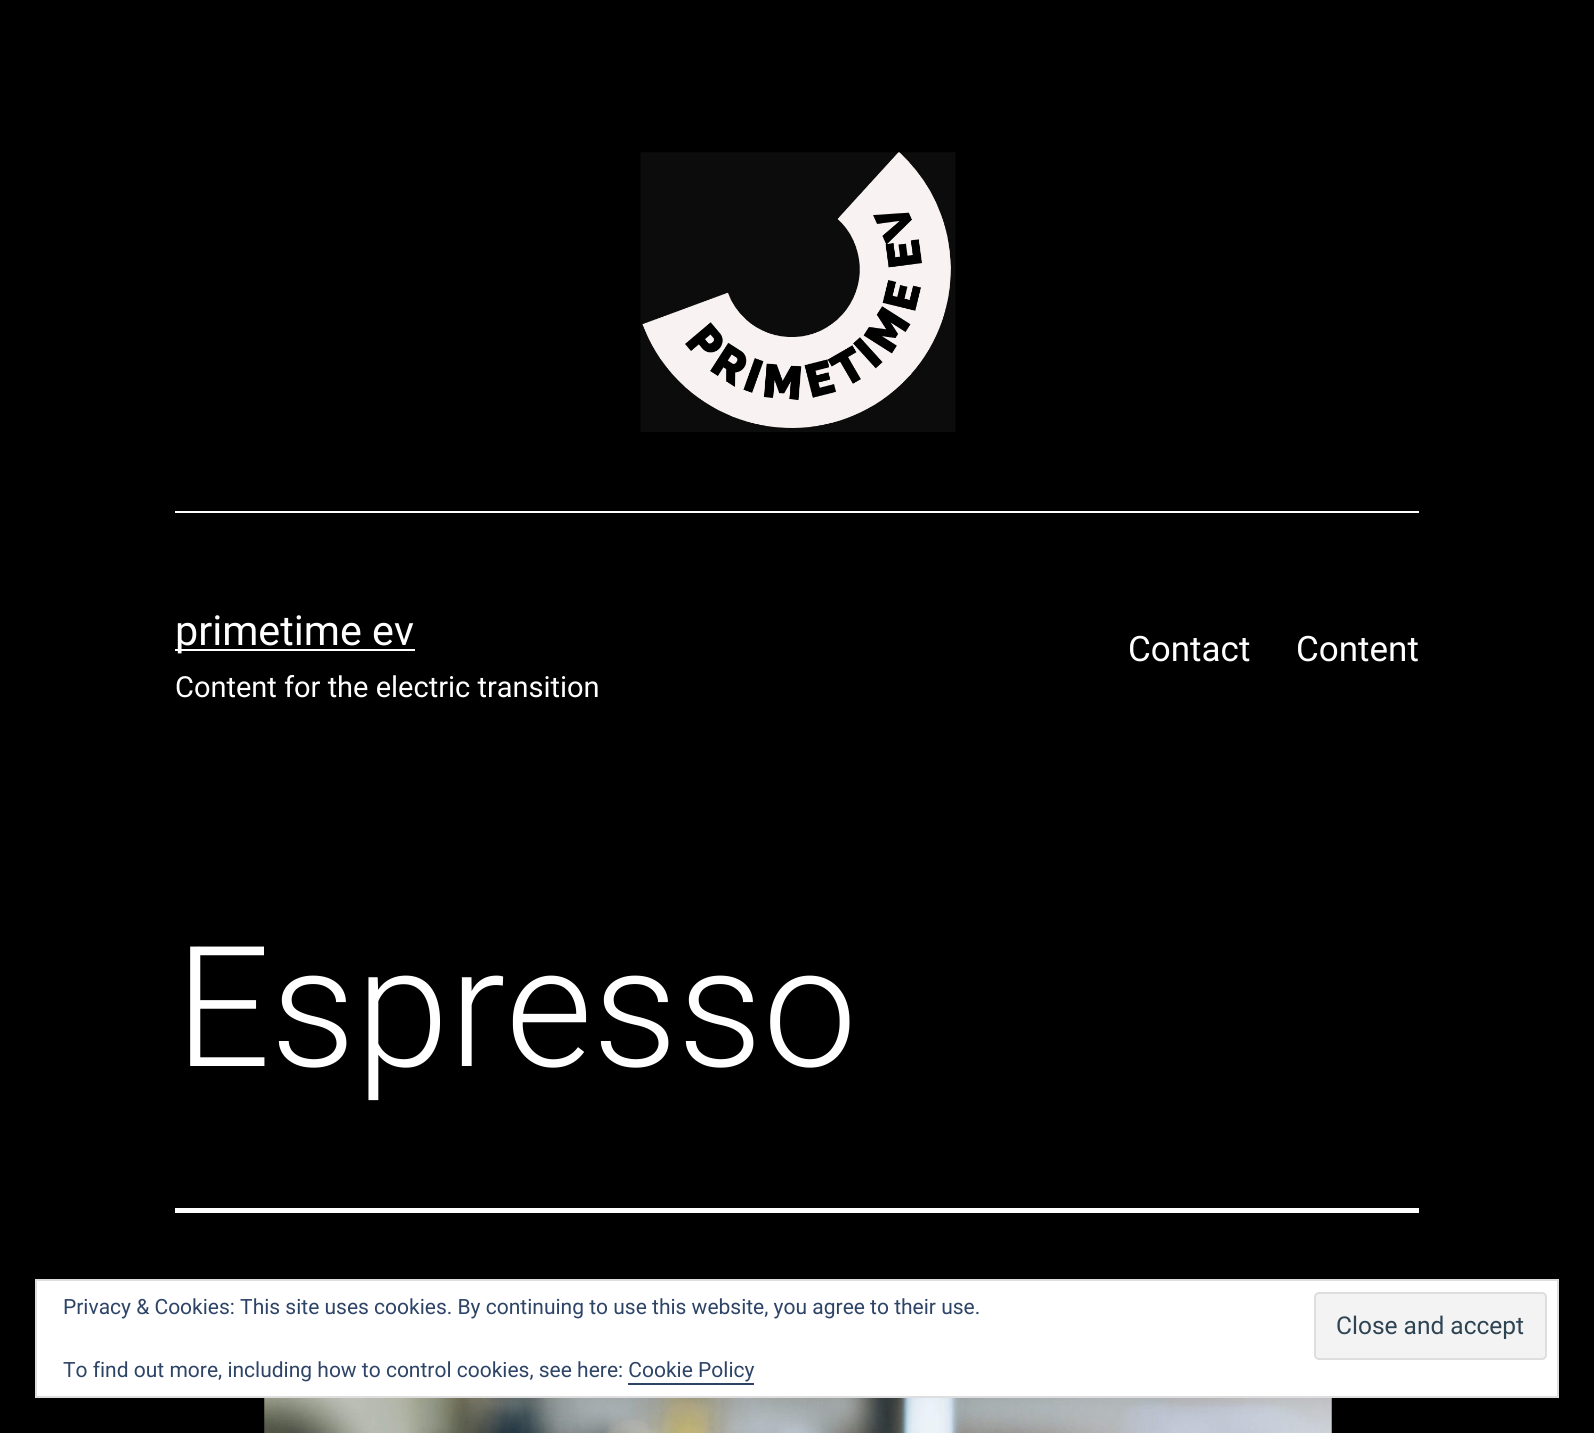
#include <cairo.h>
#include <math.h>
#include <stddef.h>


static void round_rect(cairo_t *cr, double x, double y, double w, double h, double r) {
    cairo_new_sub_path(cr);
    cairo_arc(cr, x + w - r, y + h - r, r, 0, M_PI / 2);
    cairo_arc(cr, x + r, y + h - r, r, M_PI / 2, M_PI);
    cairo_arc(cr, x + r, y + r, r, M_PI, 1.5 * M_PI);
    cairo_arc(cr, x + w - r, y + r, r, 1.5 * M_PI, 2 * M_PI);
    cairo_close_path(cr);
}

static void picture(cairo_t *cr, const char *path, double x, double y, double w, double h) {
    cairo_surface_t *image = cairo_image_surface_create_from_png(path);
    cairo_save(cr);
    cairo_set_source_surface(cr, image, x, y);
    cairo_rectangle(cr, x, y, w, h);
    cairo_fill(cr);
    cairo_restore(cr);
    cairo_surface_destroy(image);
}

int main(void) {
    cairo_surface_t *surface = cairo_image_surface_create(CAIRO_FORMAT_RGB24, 1594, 1433);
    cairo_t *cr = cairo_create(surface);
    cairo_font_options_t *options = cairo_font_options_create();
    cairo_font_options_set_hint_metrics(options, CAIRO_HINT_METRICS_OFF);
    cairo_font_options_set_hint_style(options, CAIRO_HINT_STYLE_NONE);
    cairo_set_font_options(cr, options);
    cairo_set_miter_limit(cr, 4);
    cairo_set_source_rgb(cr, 0, 0, 0);
    cairo_paint(cr);
    cairo_set_source_rgb(cr, 1, 1, 1);
    cairo_rectangle(cr, 175, 511, 1244, 2);
    cairo_fill(cr);
    picture(cr, "img1.png", 640, 152, 316, 280);
    cairo_rectangle(cr, 175, 649, 240, 2);
    cairo_fill(cr);
    cairo_select_font_face(cr, "Roboto", CAIRO_FONT_SLANT_NORMAL, CAIRO_FONT_WEIGHT_NORMAL);
    cairo_set_font_size(cr, 41.25);
    cairo_move_to(cr, 175, 645);
    cairo_show_text(cr, "primetime ev");
    cairo_set_font_size(cr, 29);
    cairo_move_to(cr, 175, 697);
    cairo_show_text(cr, "Content for the electric transition");
    cairo_set_font_size(cr, 35);
    cairo_move_to(cr, 1128, 661);
    cairo_show_text(cr, "Contact");
    cairo_move_to(cr, 1296, 661);
    cairo_show_text(cr, "Content");
    cairo_rectangle(cr, 175, 1208, 1244, 5);
    cairo_fill(cr);
    cairo_select_font_face(cr, "Roboto Light", CAIRO_FONT_SLANT_NORMAL, CAIRO_FONT_WEIGHT_NORMAL);
    cairo_set_font_size(cr, 168);
    cairo_move_to(cr, 175, 1066);
    cairo_show_text(cr, "Espresso");
    picture(cr, "img2.png", 264, 1398, 1068, 35);
    cairo_rectangle(cr, 36, 1280, 1522, 117);
    cairo_fill_preserve(cr);
    cairo_set_source_rgb(cr, 0.871, 0.871, 0.871);
    cairo_stroke(cr);
    cairo_select_font_face(cr, "Roboto", CAIRO_FONT_SLANT_NORMAL, CAIRO_FONT_WEIGHT_NORMAL);
    cairo_set_font_size(cr, 21);
    cairo_set_source_rgb(cr, 0.18, 0.267, 0.404);
    cairo_move_to(cr, 63, 1314);
    cairo_show_text(cr, "Privacy & Cookies: This site uses cookies. By continuing to use this website, you agree to their use.");
    cairo_set_source_rgb(cr, 0.953, 0.953, 0.953);
    round_rect(cr, 1315, 1293, 231, 66, 4);
    cairo_fill_preserve(cr);
    cairo_set_source_rgb(cr, 0.871, 0.871, 0.871);
    cairo_stroke(cr);
    cairo_set_font_size(cr, 24.5);
    cairo_set_source_rgb(cr, 0.18, 0.267, 0.325);
    cairo_move_to(cr, 1336, 1334);
    cairo_show_text(cr, "Close and accept");
    cairo_set_font_size(cr, 21);
    cairo_set_source_rgb(cr, 0.18, 0.267, 0.404);
    cairo_move_to(cr, 63, 1377);
    cairo_show_text(cr, "To find out more, including how to control cookies, see here: Cookie Policy");
    cairo_rectangle(cr, 628, 1383, 126, 2);
    cairo_fill(cr);
    cairo_surface_write_to_png(surface, "page.png");
    cairo_font_options_destroy(options);
    cairo_destroy(cr);
    cairo_surface_destroy(surface);
    return 0;
}
